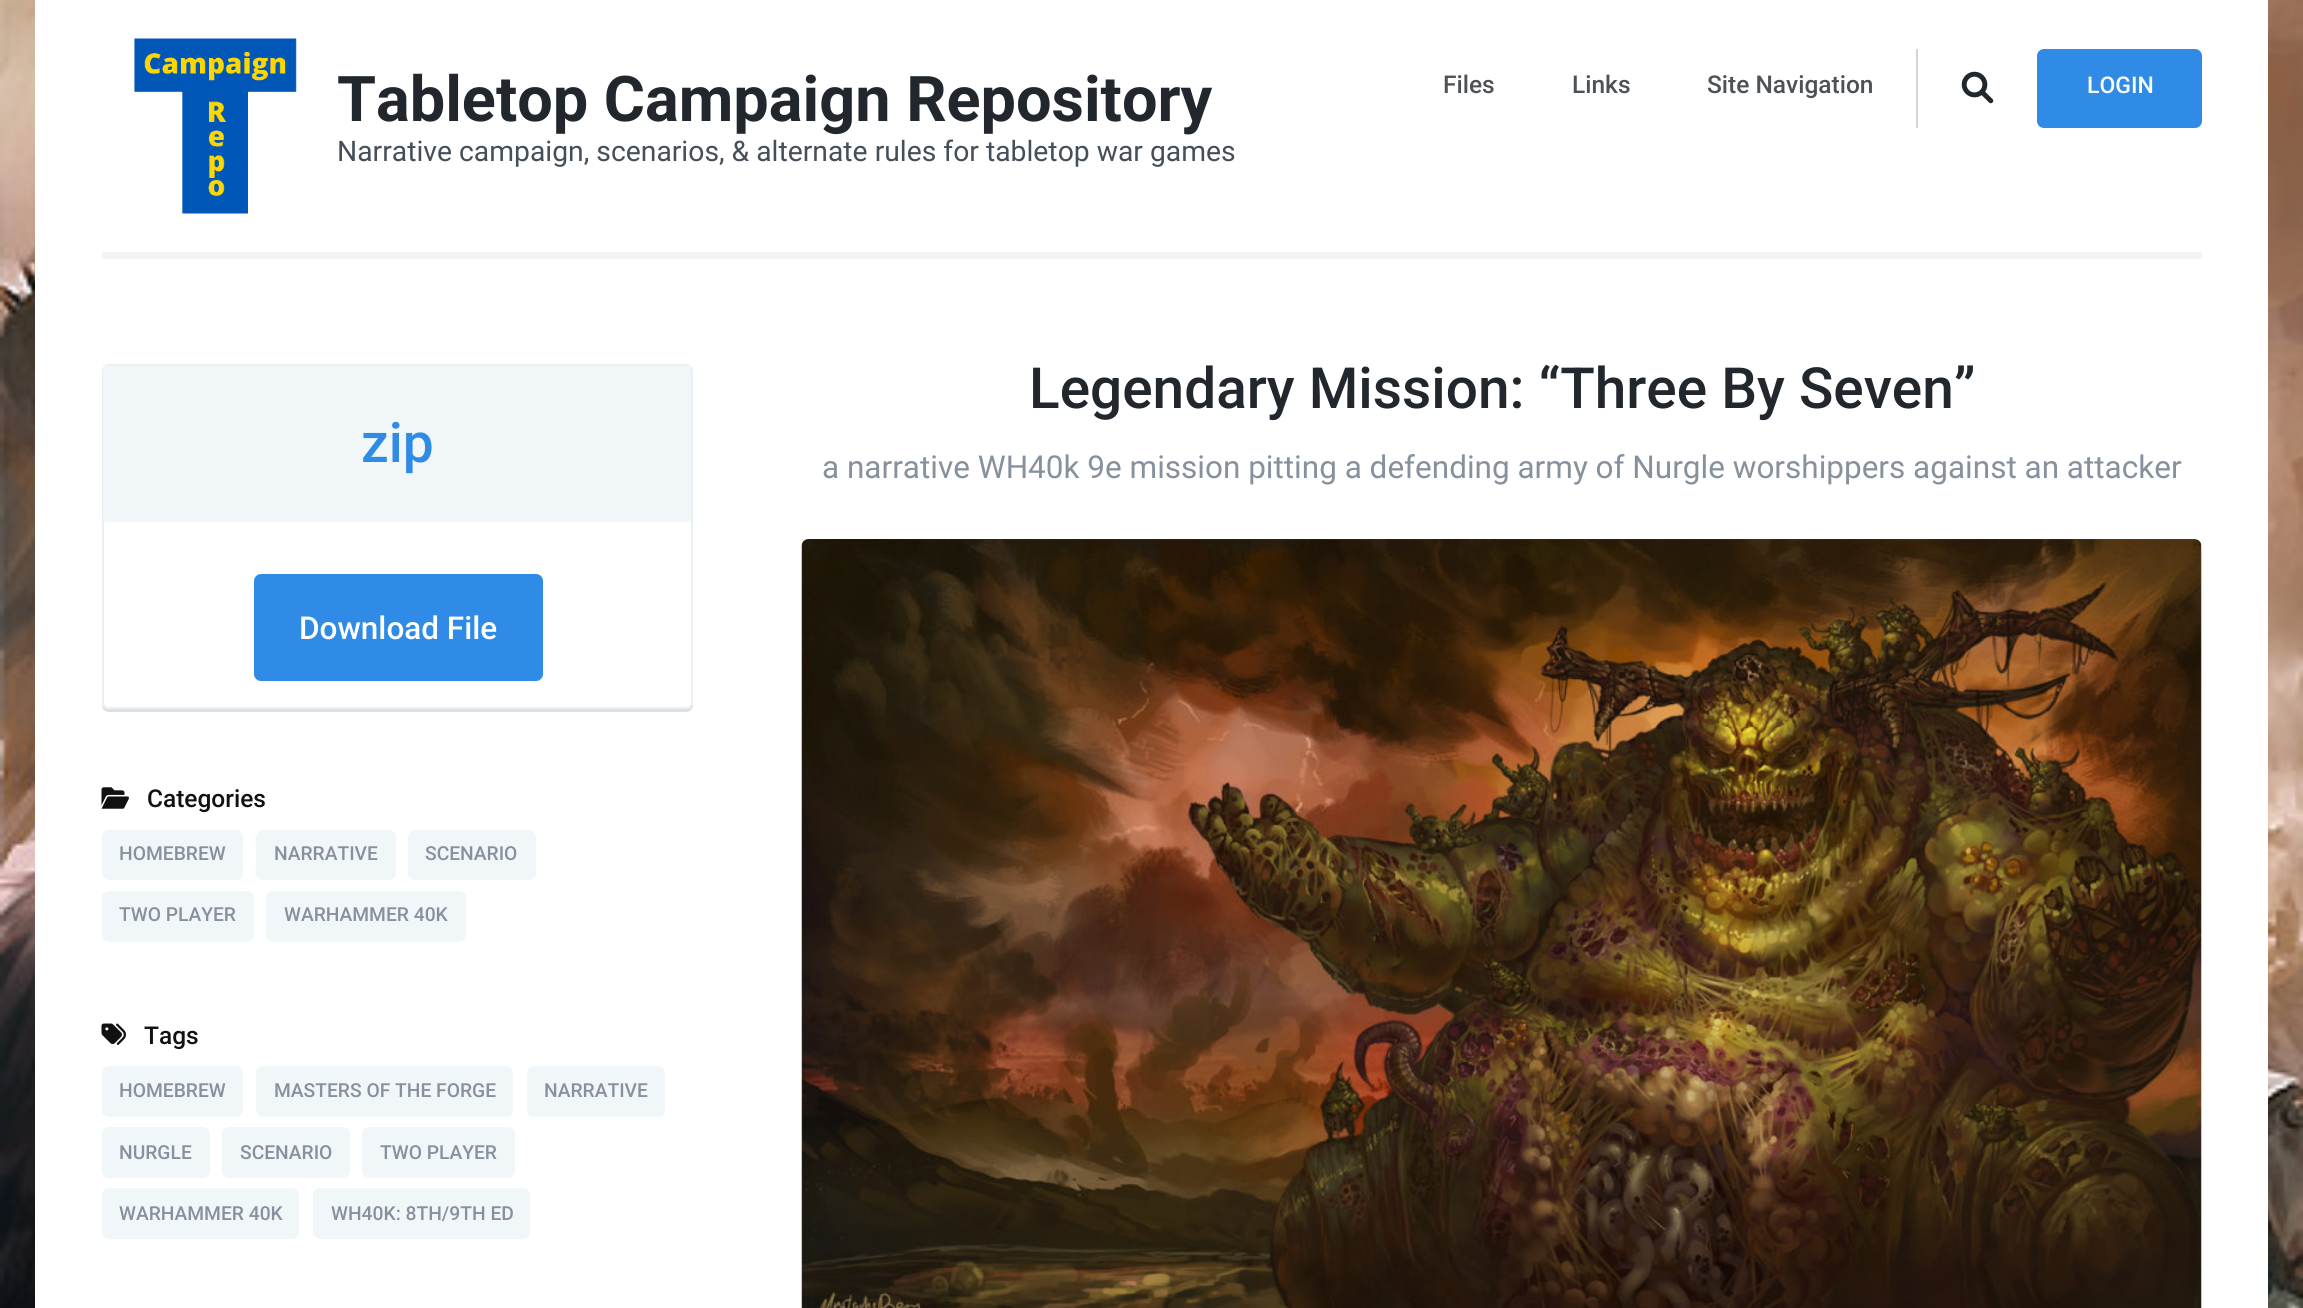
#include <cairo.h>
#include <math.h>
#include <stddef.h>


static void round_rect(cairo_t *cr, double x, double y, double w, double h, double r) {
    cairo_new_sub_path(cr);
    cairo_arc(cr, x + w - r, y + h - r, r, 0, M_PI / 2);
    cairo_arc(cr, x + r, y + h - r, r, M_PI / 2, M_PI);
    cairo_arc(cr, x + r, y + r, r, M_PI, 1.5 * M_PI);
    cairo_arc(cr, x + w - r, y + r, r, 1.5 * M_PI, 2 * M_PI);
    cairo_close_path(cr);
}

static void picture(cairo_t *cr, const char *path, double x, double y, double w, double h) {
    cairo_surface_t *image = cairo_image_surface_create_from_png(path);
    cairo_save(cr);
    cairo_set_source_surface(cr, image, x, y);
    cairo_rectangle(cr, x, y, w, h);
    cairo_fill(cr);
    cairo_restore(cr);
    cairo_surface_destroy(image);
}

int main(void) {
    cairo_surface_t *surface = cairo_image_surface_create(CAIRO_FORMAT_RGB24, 2303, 1308);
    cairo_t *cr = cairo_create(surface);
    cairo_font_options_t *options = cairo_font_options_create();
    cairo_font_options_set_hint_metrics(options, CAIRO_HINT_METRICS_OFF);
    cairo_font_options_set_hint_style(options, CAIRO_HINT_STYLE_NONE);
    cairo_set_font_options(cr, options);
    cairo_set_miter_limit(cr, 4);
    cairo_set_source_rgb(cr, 1, 1, 1);
    cairo_paint(cr);
    picture(cr, "img1.png", 0, 0, 2303, 1308);
    cairo_set_source_rgb(cr, 1, 1, 1);
    cairo_rectangle(cr, 35, 0, 2233, 1308);
    cairo_fill(cr);
    cairo_set_source_rgb(cr, 0.957, 0.957, 0.957);
    cairo_rectangle(cr, 102, 252, 2100, 7);
    cairo_fill(cr);
    picture(cr, "img2.png", 134, 38, 163, 176);
    cairo_select_font_face(cr, "Roboto", CAIRO_FONT_SLANT_NORMAL, CAIRO_FONT_WEIGHT_BOLD);
    cairo_set_font_size(cr, 63);
    cairo_set_source_rgb(cr, 0.129, 0.153, 0.173);
    cairo_move_to(cr, 337, 121);
    cairo_show_text(cr, "Tabletop Campaign Repository");
    cairo_select_font_face(cr, "Roboto", CAIRO_FONT_SLANT_NORMAL, CAIRO_FONT_WEIGHT_NORMAL);
    cairo_set_font_size(cr, 28.3);
    cairo_set_source_rgb(cr, 0.271, 0.31, 0.349);
    cairo_move_to(cr, 337, 161);
    cairo_show_text(cr, "Narrative campaign, scenarios, & alternate rules for tabletop war games");
    cairo_select_font_face(cr, "Roboto Medium", CAIRO_FONT_SLANT_NORMAL, CAIRO_FONT_WEIGHT_NORMAL);
    cairo_set_font_size(cr, 24.5);
    cairo_set_source_rgb(cr, 0.302, 0.322, 0.337);
    cairo_move_to(cr, 1443, 93);
    cairo_show_text(cr, "Files");
    cairo_move_to(cr, 1572, 93);
    cairo_show_text(cr, "Links");
    cairo_move_to(cr, 1707, 93);
    cairo_show_text(cr, "Site Navigation");
    cairo_set_source_rgb(cr, 0.827, 0.831, 0.835);
    cairo_rectangle(cr, 1916, 49, 2, 79);
    cairo_fill(cr);
    picture(cr, "img3.png", 1961, 71, 33, 33);
    cairo_set_source_rgb(cr, 0.184, 0.545, 0.902);
    round_rect(cr, 2038, 50, 163, 77, 6);
    cairo_fill_preserve(cr);
    cairo_stroke(cr);
    cairo_set_font_size(cr, 23);
    cairo_set_source_rgb(cr, 1, 1, 1);
    cairo_move_to(cr, 2087, 93);
    cairo_show_text(cr, "LOGIN");
    cairo_set_source_rgb(cr, 0.855, 0.882, 0.906);
    cairo_new_path(cr);
    cairo_move_to(cr, 102, 704);
    cairo_line_to(cr, 102, 705);
    cairo_curve_to(cr, 102, 709, 105, 712, 109, 712);
    cairo_line_to(cr, 686, 712);
    cairo_curve_to(cr, 690, 712, 693, 709, 693, 705);
    cairo_line_to(cr, 693, 702);
    cairo_curve_to(cr, 693, 706, 690, 709, 686, 709);
    cairo_line_to(cr, 108, 709);
    cairo_curve_to(cr, 106, 709, 103, 707, 102, 704);
    cairo_close_path(cr);
    cairo_fill(cr);
    round_rect(cr, 103, 365, 589, 343, 6);
    cairo_set_source_rgba(cr, 0.855, 0.882, 0.906, 0.5);
    cairo_stroke(cr);
    cairo_set_source_rgb(cr, 0.945, 0.961, 0.973);
    cairo_rectangle(cr, 103, 366, 588, 156);
    cairo_fill(cr);
    cairo_set_font_size(cr, 55);
    cairo_set_source_rgb(cr, 0.184, 0.545, 0.902);
    cairo_move_to(cr, 361, 462);
    cairo_show_text(cr, "zip");
    round_rect(cr, 255, 575, 287, 105, 6);
    cairo_fill_preserve(cr);
    cairo_stroke(cr);
    cairo_set_font_size(cr, 31.5);
    cairo_set_source_rgb(cr, 1, 1, 1);
    cairo_move_to(cr, 299, 639);
    cairo_show_text(cr, "Download File");
    picture(cr, "img4.png", 101, 787, 28, 22);
    cairo_set_font_size(cr, 24.5);
    cairo_set_source_rgb(cr, 0.067, 0.067, 0.067);
    cairo_move_to(cr, 147, 807);
    cairo_show_text(cr, "Categories");
    cairo_set_source_rgb(cr, 0.945, 0.961, 0.973);
    round_rect(cr, 102, 830, 141, 50, 7);
    cairo_fill(cr);
    cairo_set_font_size(cr, 19.25);
    cairo_set_source_rgb(cr, 0.525, 0.569, 0.616);
    cairo_move_to(cr, 119, 860);
    cairo_show_text(cr, "HOMEBREW");
    cairo_set_source_rgb(cr, 0.945, 0.961, 0.973);
    round_rect(cr, 256, 830, 140, 50, 7);
    cairo_fill(cr);
    cairo_set_source_rgb(cr, 0.525, 0.569, 0.616);
    cairo_move_to(cr, 274, 860);
    cairo_show_text(cr, "NARRATIVE");
    cairo_set_source_rgb(cr, 0.945, 0.961, 0.973);
    round_rect(cr, 408, 830, 128, 50, 7);
    cairo_fill(cr);
    cairo_set_source_rgb(cr, 0.525, 0.569, 0.616);
    cairo_move_to(cr, 425, 860);
    cairo_show_text(cr, "SCENARIO");
    cairo_set_source_rgb(cr, 0.945, 0.961, 0.973);
    round_rect(cr, 102, 891, 152, 51, 7);
    cairo_fill(cr);
    cairo_set_source_rgb(cr, 0.525, 0.569, 0.616);
    cairo_move_to(cr, 119, 921);
    cairo_show_text(cr, "TWO PLAYER");
    cairo_set_source_rgb(cr, 0.945, 0.961, 0.973);
    round_rect(cr, 266, 891, 200, 51, 7);
    cairo_fill(cr);
    cairo_set_source_rgb(cr, 0.525, 0.569, 0.616);
    cairo_move_to(cr, 284, 921);
    cairo_show_text(cr, "WARHAMMER 40K");
    picture(cr, "img5.png", 101, 1023, 25, 22);
    cairo_set_font_size(cr, 24.5);
    cairo_set_source_rgb(cr, 0.067, 0.067, 0.067);
    cairo_move_to(cr, 144, 1044);
    cairo_show_text(cr, "Tags");
    cairo_set_source_rgb(cr, 0.945, 0.961, 0.973);
    round_rect(cr, 102, 1066, 141, 51, 7);
    cairo_fill(cr);
    cairo_set_font_size(cr, 19.25);
    cairo_set_source_rgb(cr, 0.525, 0.569, 0.616);
    cairo_move_to(cr, 119, 1097);
    cairo_show_text(cr, "HOMEBREW");
    cairo_set_source_rgb(cr, 0.945, 0.961, 0.973);
    round_rect(cr, 256, 1066, 257, 51, 7);
    cairo_fill(cr);
    cairo_set_source_rgb(cr, 0.525, 0.569, 0.616);
    cairo_move_to(cr, 274, 1097);
    cairo_show_text(cr, "MASTERS OF THE FORGE");
    cairo_set_source_rgb(cr, 0.945, 0.961, 0.973);
    round_rect(cr, 527, 1066, 138, 51, 7);
    cairo_fill(cr);
    cairo_set_source_rgb(cr, 0.525, 0.569, 0.616);
    cairo_move_to(cr, 544, 1097);
    cairo_show_text(cr, "NARRATIVE");
    cairo_set_source_rgb(cr, 0.945, 0.961, 0.973);
    round_rect(cr, 102, 1127, 108, 51, 7);
    cairo_fill(cr);
    cairo_set_source_rgb(cr, 0.525, 0.569, 0.616);
    cairo_move_to(cr, 119, 1159);
    cairo_show_text(cr, "NURGLE");
    cairo_set_source_rgb(cr, 0.945, 0.961, 0.973);
    round_rect(cr, 222, 1127, 128, 51, 7);
    cairo_fill(cr);
    cairo_set_source_rgb(cr, 0.525, 0.569, 0.616);
    cairo_move_to(cr, 240, 1159);
    cairo_show_text(cr, "SCENARIO");
    cairo_set_source_rgb(cr, 0.945, 0.961, 0.973);
    round_rect(cr, 362, 1127, 153, 51, 7);
    cairo_fill(cr);
    cairo_set_source_rgb(cr, 0.525, 0.569, 0.616);
    cairo_move_to(cr, 380, 1159);
    cairo_show_text(cr, "TWO PLAYER");
    cairo_set_source_rgb(cr, 0.945, 0.961, 0.973);
    round_rect(cr, 102, 1188, 197, 51, 7);
    cairo_fill(cr);
    cairo_set_source_rgb(cr, 0.525, 0.569, 0.616);
    cairo_move_to(cr, 119, 1220);
    cairo_show_text(cr, "WARHAMMER 40K");
    cairo_set_source_rgb(cr, 0.945, 0.961, 0.973);
    round_rect(cr, 313, 1188, 217, 51, 7);
    cairo_fill(cr);
    cairo_set_source_rgb(cr, 0.525, 0.569, 0.616);
    cairo_move_to(cr, 331, 1220);
    cairo_show_text(cr, "WH40K: 8TH/9TH ED");
    cairo_set_font_size(cr, 56.75);
    cairo_set_source_rgb(cr, 0.129, 0.153, 0.173);
    cairo_move_to(cr, 1029, 408);
    cairo_show_text(cr, "Legendary Mission: “Three By Seven”");
    cairo_select_font_face(cr, "Roboto", CAIRO_FONT_SLANT_NORMAL, CAIRO_FONT_WEIGHT_NORMAL);
    cairo_set_font_size(cr, 31.5);
    cairo_set_source_rgb(cr, 0.525, 0.569, 0.616);
    cairo_move_to(cr, 822, 478);
    cairo_show_text(cr, "a narrative WH40k 9e mission pitting a defending army of Nurgle worshippers against an attacker");
    picture(cr, "img6.png", 801, 539, 1401, 769);
    cairo_surface_write_to_png(surface, "page.png");
    cairo_font_options_destroy(options);
    cairo_destroy(cr);
    cairo_surface_destroy(surface);
    return 0;
}
